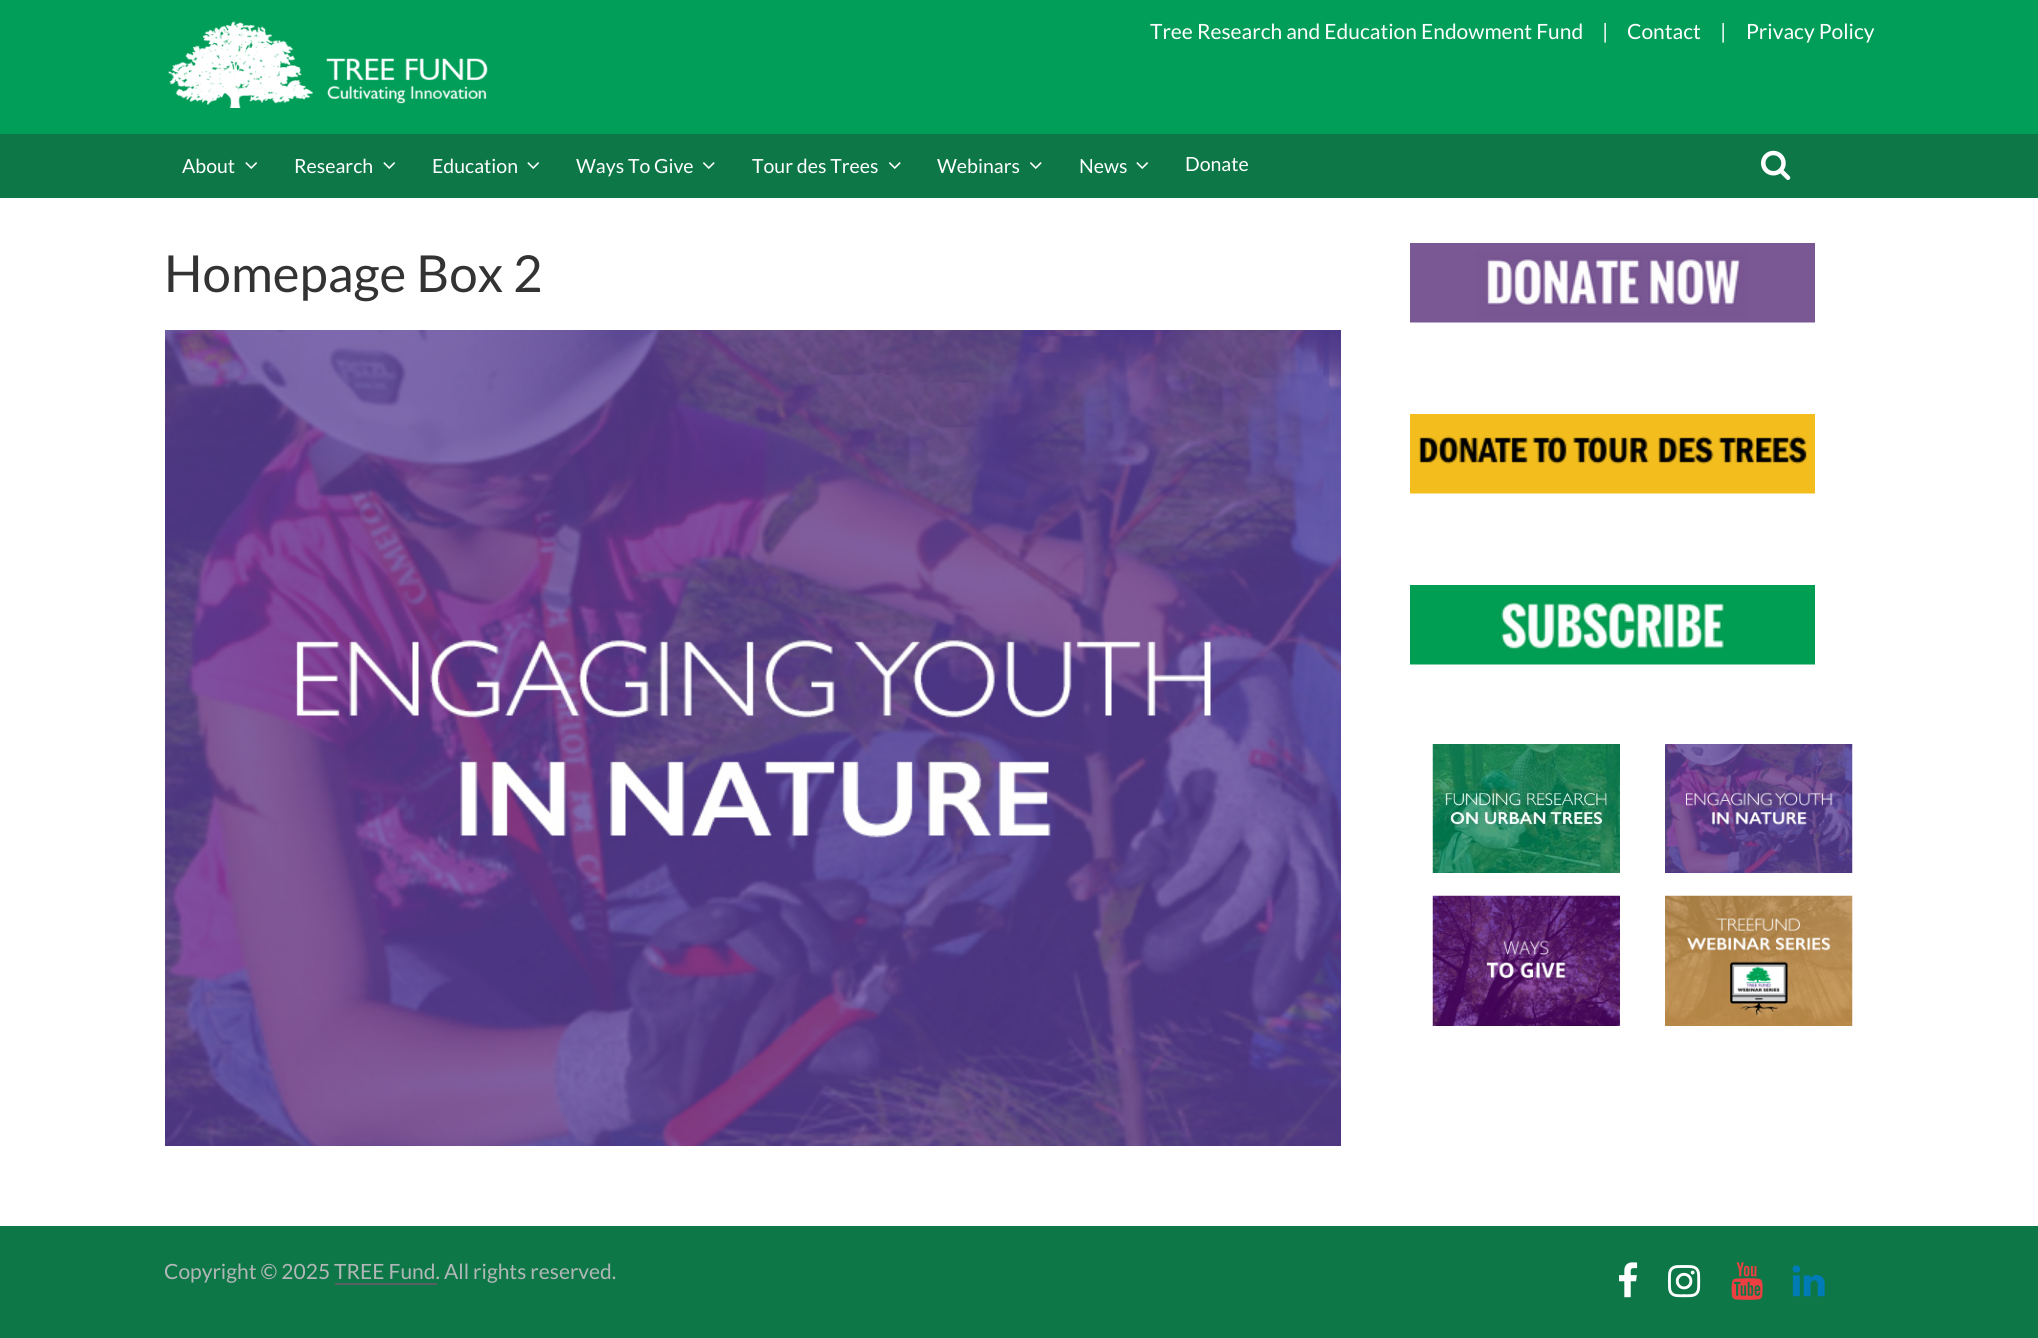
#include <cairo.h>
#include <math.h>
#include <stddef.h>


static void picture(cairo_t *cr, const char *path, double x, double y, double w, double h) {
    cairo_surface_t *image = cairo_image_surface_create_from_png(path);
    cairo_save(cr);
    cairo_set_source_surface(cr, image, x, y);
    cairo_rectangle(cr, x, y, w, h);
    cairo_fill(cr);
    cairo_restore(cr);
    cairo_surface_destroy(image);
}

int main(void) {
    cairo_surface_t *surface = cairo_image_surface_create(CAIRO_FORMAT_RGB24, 2038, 1338);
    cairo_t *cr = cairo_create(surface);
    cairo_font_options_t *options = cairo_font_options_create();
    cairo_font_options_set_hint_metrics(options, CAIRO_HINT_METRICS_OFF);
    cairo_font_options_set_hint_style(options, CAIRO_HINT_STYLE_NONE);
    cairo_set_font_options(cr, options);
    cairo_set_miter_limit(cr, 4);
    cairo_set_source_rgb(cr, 1, 1, 1);
    cairo_paint(cr);
    cairo_set_source_rgb(cr, 0, 0.62, 0.345);
    cairo_rectangle(cr, 0, 0, 2038, 134);
    cairo_fill(cr);
    picture(cr, "img1.png", 168, 21, 320, 87);
    cairo_select_font_face(cr, "Lato", CAIRO_FONT_SLANT_NORMAL, CAIRO_FONT_WEIGHT_NORMAL);
    cairo_set_font_size(cr, 21);
    cairo_set_source_rgb(cr, 1, 1, 1);
    cairo_move_to(cr, 1150, 39);
    cairo_show_text(cr, "Tree Research and Education Endowment Fund");
    cairo_move_to(cr, 1602, 39);
    cairo_show_text(cr, "|");
    cairo_move_to(cr, 1627, 39);
    cairo_show_text(cr, "Contact");
    cairo_move_to(cr, 1720, 39);
    cairo_show_text(cr, "|");
    cairo_move_to(cr, 1746, 39);
    cairo_show_text(cr, "Privacy Policy");
    cairo_set_source_rgb(cr, 0.051, 0.467, 0.282);
    cairo_rectangle(cr, 0, 134, 2038, 64);
    cairo_fill(cr);
    cairo_set_font_size(cr, 19.5);
    cairo_set_source_rgb(cr, 1, 1, 1);
    cairo_move_to(cr, 182, 173);
    cairo_show_text(cr, "About");
    picture(cr, "img2.png", 245, 162, 12, 7);
    cairo_move_to(cr, 294, 173);
    cairo_show_text(cr, "Research");
    picture(cr, "img2.png", 383, 162, 12, 7);
    cairo_move_to(cr, 432, 173);
    cairo_show_text(cr, "Education");
    picture(cr, "img2.png", 527, 162, 12, 7);
    cairo_move_to(cr, 576, 173);
    cairo_show_text(cr, "Ways To Give");
    picture(cr, "img3.png", 703, 162, 12, 7);
    cairo_move_to(cr, 752, 173);
    cairo_show_text(cr, "Tour des Trees");
    picture(cr, "img3.png", 889, 162, 12, 7);
    cairo_move_to(cr, 937, 173);
    cairo_show_text(cr, "Webinars");
    picture(cr, "img3.png", 1030, 162, 12, 7);
    cairo_move_to(cr, 1079, 173);
    cairo_show_text(cr, "News");
    picture(cr, "img2.png", 1136, 162, 12, 7);
    cairo_move_to(cr, 1185, 171);
    cairo_show_text(cr, "Donate");
    picture(cr, "img4.png", 1761, 150, 30, 30);
    cairo_set_font_size(cr, 51);
    cairo_set_source_rgb(cr, 0.2, 0.2, 0.2);
    cairo_move_to(cr, 164, 292);
    cairo_show_text(cr, "Homepage Box 2");
    picture(cr, "img5.png", 165, 330, 1176, 816);
    picture(cr, "img6.png", 1410, 243, 405, 80);
    picture(cr, "img7.png", 1410, 414, 405, 80);
    picture(cr, "img8.png", 1410, 585, 405, 80);
    picture(cr, "img9.png", 1432, 744, 188, 129);
    picture(cr, "img10.png", 1665, 744, 188, 129);
    picture(cr, "img11.png", 1432, 895, 188, 131);
    picture(cr, "img12.png", 1665, 895, 188, 131);
    cairo_set_source_rgb(cr, 0.051, 0.467, 0.282);
    cairo_rectangle(cr, 0, 1226, 2038, 112);
    cairo_fill(cr);
    cairo_set_font_size(cr, 21);
    cairo_set_source_rgb(cr, 0.694, 0.714, 0.714);
    cairo_move_to(cr, 164, 1279);
    cairo_show_text(cr, "Copyright © 2025 TREE Fund. All rights reserved.");
    cairo_set_source_rgb(cr, 0.353, 0.365, 0.384);
    cairo_rectangle(cr, 335, 1283, 102, 2);
    cairo_fill(cr);
    picture(cr, "img13.png", 1619, 1262, 19, 36);
    picture(cr, "img14.png", 1668, 1265, 33, 33);
    picture(cr, "img15.png", 1731, 1262, 32, 38);
    picture(cr, "img16.png", 1792, 1265, 33, 32);
    cairo_surface_write_to_png(surface, "page.png");
    cairo_font_options_destroy(options);
    cairo_destroy(cr);
    cairo_surface_destroy(surface);
    return 0;
}
